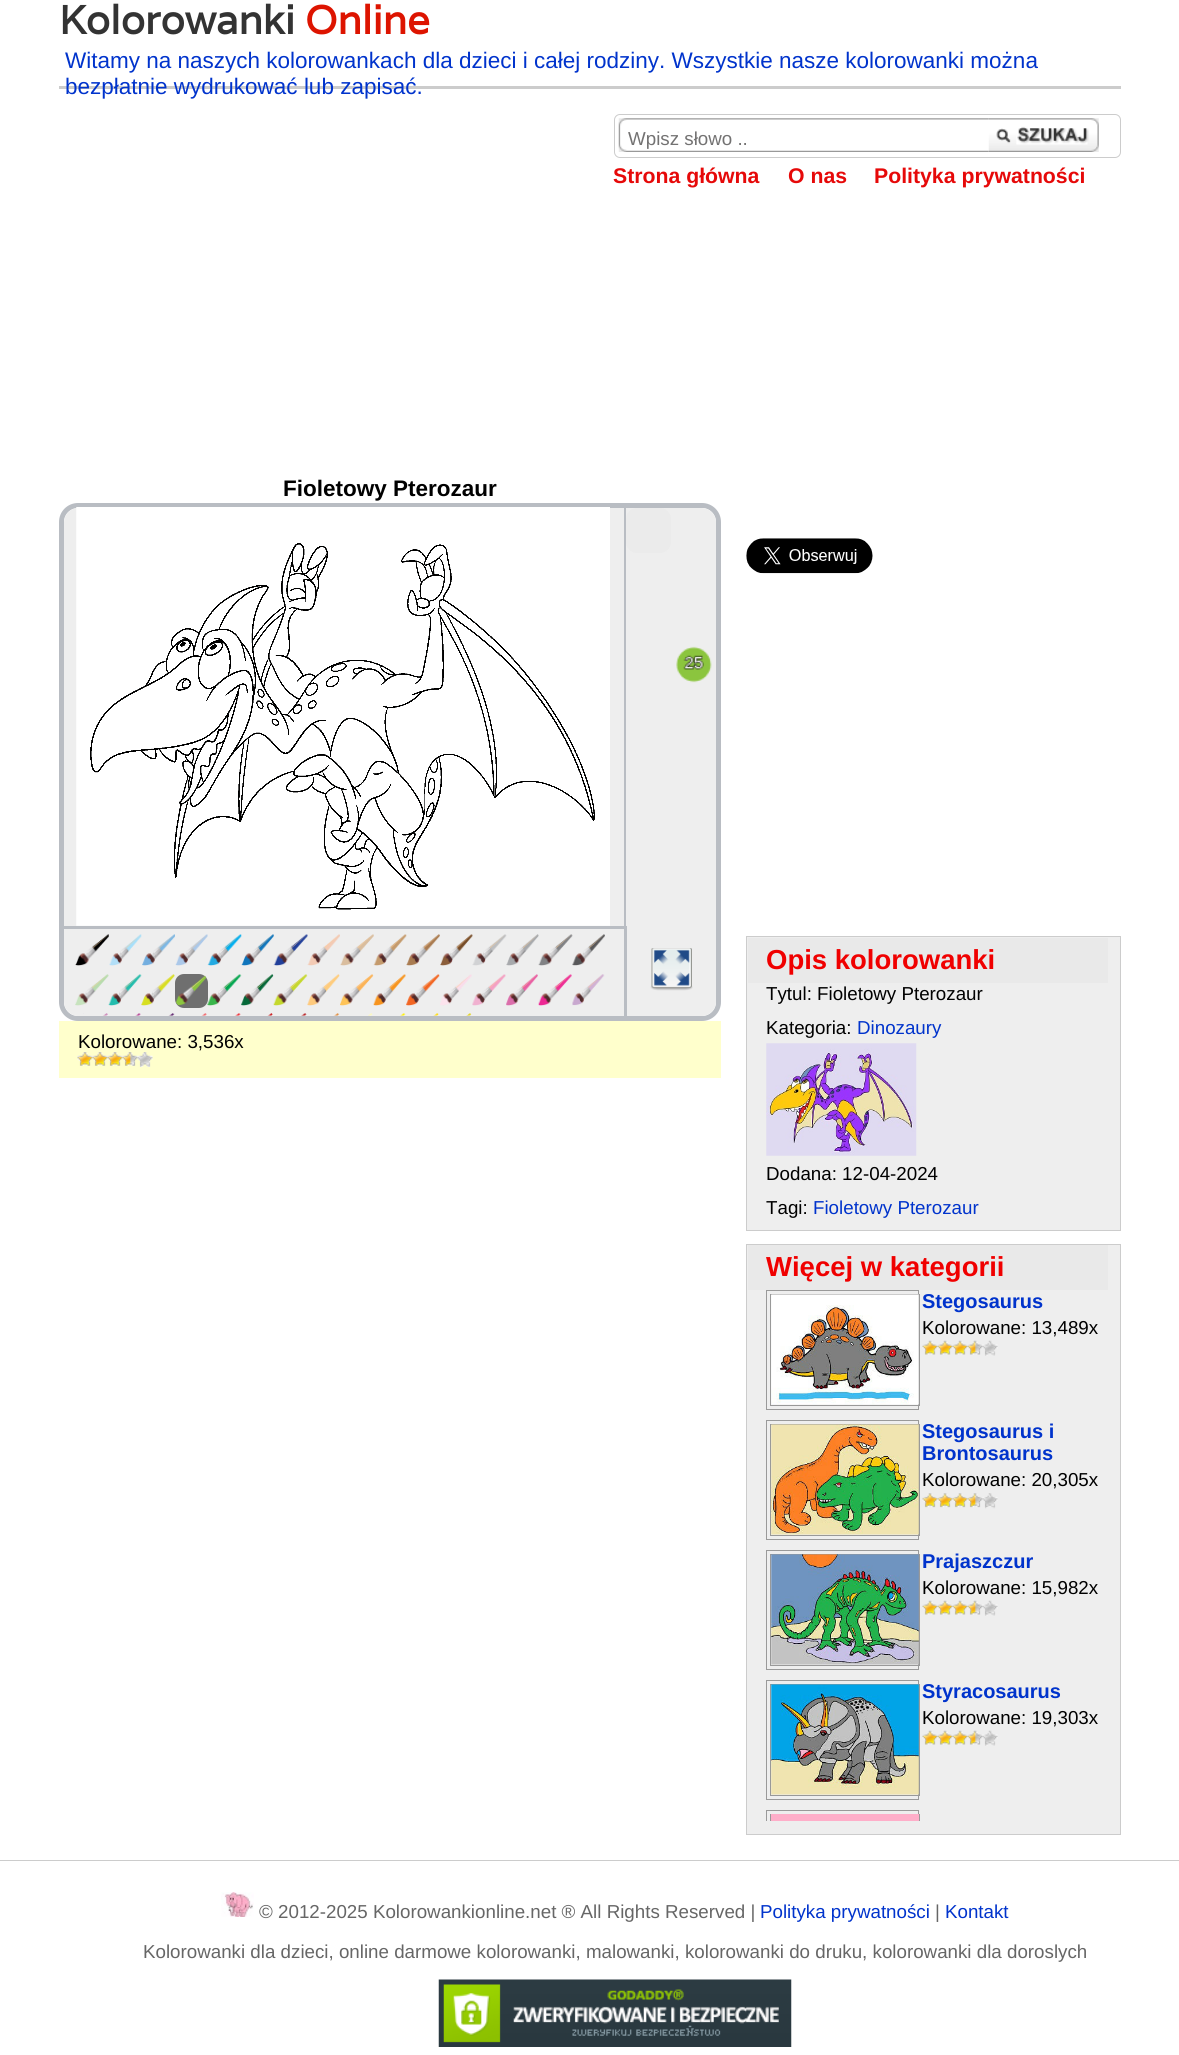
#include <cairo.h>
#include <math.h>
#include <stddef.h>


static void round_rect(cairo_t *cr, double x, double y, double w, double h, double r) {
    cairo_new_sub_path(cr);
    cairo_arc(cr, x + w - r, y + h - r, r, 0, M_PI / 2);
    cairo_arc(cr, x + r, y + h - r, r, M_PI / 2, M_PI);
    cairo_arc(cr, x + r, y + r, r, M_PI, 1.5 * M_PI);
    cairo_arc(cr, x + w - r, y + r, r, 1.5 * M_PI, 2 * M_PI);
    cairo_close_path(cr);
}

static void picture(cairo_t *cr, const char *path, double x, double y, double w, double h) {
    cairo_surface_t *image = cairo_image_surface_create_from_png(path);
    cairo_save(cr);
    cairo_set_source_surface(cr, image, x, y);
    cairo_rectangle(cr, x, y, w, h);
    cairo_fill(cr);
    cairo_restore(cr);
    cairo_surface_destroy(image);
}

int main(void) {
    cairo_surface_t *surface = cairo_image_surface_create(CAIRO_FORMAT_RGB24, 1179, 2055);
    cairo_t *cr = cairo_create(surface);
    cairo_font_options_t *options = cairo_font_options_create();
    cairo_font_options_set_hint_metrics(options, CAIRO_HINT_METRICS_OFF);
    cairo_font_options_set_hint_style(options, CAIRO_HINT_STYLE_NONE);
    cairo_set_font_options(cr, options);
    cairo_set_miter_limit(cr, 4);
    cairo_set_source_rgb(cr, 1, 1, 1);
    cairo_paint(cr);
    cairo_set_source_rgb(cr, 0.8, 0.8, 0.8);
    cairo_rectangle(cr, 59, 86, 1062, 3);
    cairo_fill(cr);
    cairo_select_font_face(cr, "Varela", CAIRO_FONT_SLANT_NORMAL, CAIRO_FONT_WEIGHT_BOLD);
    cairo_set_font_size(cr, 40);
    cairo_set_source_rgb(cr, 0.2, 0.2, 0.2);
    cairo_move_to(cr, 59, 34);
    cairo_show_text(cr, "Kolorowanki");
    cairo_set_source_rgb(cr, 0.867, 0.082, 0);
    cairo_move_to(cr, 305, 34);
    cairo_show_text(cr, "Online");
    cairo_select_font_face(cr, "Liberation Sans", CAIRO_FONT_SLANT_NORMAL, CAIRO_FONT_WEIGHT_NORMAL);
    cairo_set_font_size(cr, 22.5);
    cairo_set_source_rgb(cr, 0, 0.2, 0.8);
    cairo_move_to(cr, 65, 68);
    cairo_show_text(cr, "Witamy na naszych kolorowankach dla dzieci i całej rodziny. Wszystkie nasze kolorowanki można");
    cairo_move_to(cr, 65, 94);
    cairo_show_text(cr, "bezpłatnie wydrukować lub zapisać.");
    round_rect(cr, 614.5, 114.5, 506, 43, 5.5);
    cairo_set_source_rgb(cr, 0.8, 0.8, 0.8);
    cairo_set_line_width(cr, 1);
    cairo_stroke(cr);
    picture(cr, "img1.png", 618, 118, 371, 34);
    cairo_set_font_size(cr, 18.75);
    cairo_set_source_rgb(cr, 0.451, 0.447, 0.447);
    cairo_move_to(cr, 628, 145);
    cairo_show_text(cr, "Wpisz słowo ..");
    picture(cr, "img2.png", 988, 118, 111, 34);
    cairo_select_font_face(cr, "Liberation Sans", CAIRO_FONT_SLANT_NORMAL, CAIRO_FONT_WEIGHT_BOLD);
    cairo_set_font_size(cr, 21.25);
    cairo_set_source_rgb(cr, 0.902, 0.039, 0.039);
    cairo_move_to(cr, 613, 183);
    cairo_show_text(cr, "Strona główna");
    cairo_move_to(cr, 788, 183);
    cairo_show_text(cr, "O nas");
    cairo_move_to(cr, 874, 183);
    cairo_show_text(cr, "Polityka prywatności");
    cairo_set_font_size(cr, 22.5);
    cairo_set_source_rgb(cr, 0, 0, 0);
    cairo_move_to(cr, 283, 496);
    cairo_show_text(cr, "Fioletowy Pterozaur");
    round_rect(cr, 61.5, 505.5, 657, 513, 16.5);
    cairo_set_source_rgb(cr, 0.725, 0.741, 0.765);
    cairo_set_line_width(cr, 5);
    cairo_stroke(cr);
    cairo_set_source_rgb(cr, 0.933, 0.933, 0.933);
    cairo_new_path(cr);
    cairo_move_to(cr, 78, 508);
    cairo_line_to(cr, 626, 508);
    cairo_line_to(cr, 626, 926);
    cairo_line_to(cr, 64, 926);
    cairo_line_to(cr, 64, 522);
    cairo_curve_to(cr, 64, 514.5, 70.5, 508, 78, 508);
    cairo_close_path(cr);
    cairo_fill(cr);
    cairo_set_source_rgb(cr, 0.725, 0.741, 0.765);
    cairo_rectangle(cr, 624, 508, 2, 418);
    cairo_fill(cr);
    picture(cr, "img3.png", 76, 507, 534, 419);
    picture(cr, "img4.png", 90, 543, 505, 367);
    cairo_set_source_rgb(cr, 0.933, 0.933, 0.933);
    cairo_new_path(cr);
    cairo_move_to(cr, 626, 508);
    cairo_line_to(cr, 702, 508);
    cairo_curve_to(cr, 709.5, 508, 716, 514.5, 716, 522);
    cairo_line_to(cr, 716, 1002);
    cairo_curve_to(cr, 716, 1009.5, 709.5, 1016, 702, 1016);
    cairo_line_to(cr, 626, 1016);
    cairo_close_path(cr);
    cairo_fill(cr);
    cairo_set_source_rgb(cr, 0.918, 0.918, 0.918);
    round_rect(cr, 626, 508, 45, 45, 11);
    cairo_fill(cr);
    picture(cr, "img5.png", 676, 646, 36, 37);
    cairo_set_source_rgb(cr, 0.933, 0.933, 0.933);
    cairo_new_path(cr);
    cairo_move_to(cr, 64, 926);
    cairo_line_to(cr, 626, 926);
    cairo_line_to(cr, 626, 1016);
    cairo_line_to(cr, 78, 1016);
    cairo_curve_to(cr, 70.5, 1016, 64, 1009.5, 64, 1002);
    cairo_close_path(cr);
    cairo_fill(cr);
    cairo_set_source_rgb(cr, 0.725, 0.741, 0.765);
    cairo_rectangle(cr, 64, 926, 562, 3);
    cairo_fill(cr);
    cairo_rectangle(cr, 624, 926, 3, 90);
    cairo_fill(cr);
    picture(cr, "img6.png", 75, 934, 34, 32);
    picture(cr, "img7.png", 109, 934, 33, 32);
    picture(cr, "img8.png", 142, 934, 33, 32);
    picture(cr, "img9.png", 175, 934, 33, 32);
    picture(cr, "img10.png", 207, 934, 35, 32);
    picture(cr, "img11.png", 241, 934, 33, 32);
    picture(cr, "img12.png", 273, 934, 35, 32);
    picture(cr, "img13.png", 307, 934, 33, 32);
    picture(cr, "img14.png", 340, 934, 34, 32);
    picture(cr, "img15.png", 373, 934, 34, 32);
    picture(cr, "img16.png", 406, 934, 34, 32);
    picture(cr, "img17.png", 440, 934, 33, 32);
    picture(cr, "img18.png", 472, 934, 35, 32);
    picture(cr, "img19.png", 506, 934, 33, 32);
    picture(cr, "img20.png", 538, 934, 35, 32);
    picture(cr, "img21.png", 572, 934, 33, 32);
    picture(cr, "img22.png", 75, 974, 34, 32);
    picture(cr, "img23.png", 108, 974, 34, 32);
    picture(cr, "img24.png", 141, 974, 34, 32);
    cairo_set_source_rgb(cr, 0.435, 0.435, 0.435);
    round_rect(cr, 175, 974, 33, 34, 9);
    cairo_fill(cr);
    picture(cr, "img25.png", 176, 975, 31, 31);
    picture(cr, "img26.png", 207, 974, 35, 32);
    picture(cr, "img27.png", 241, 974, 33, 32);
    picture(cr, "img28.png", 273, 974, 35, 32);
    picture(cr, "img29.png", 307, 974, 33, 32);
    picture(cr, "img30.png", 340, 974, 34, 32);
    picture(cr, "img31.png", 373, 974, 33, 32);
    picture(cr, "img32.png", 406, 974, 34, 32);
    picture(cr, "img33.png", 440, 974, 32, 32);
    picture(cr, "img34.png", 472, 974, 34, 32);
    picture(cr, "img35.png", 506, 974, 32, 32);
    picture(cr, "img36.png", 538, 974, 34, 32);
    picture(cr, "img37.png", 572, 974, 33, 32);
    picture(cr, "img38.png", 83, 1013, 25, 3);
    picture(cr, "img39.png", 135, 1013, 6, 3);
    picture(cr, "img40.png", 168, 1013, 7, 3);
    picture(cr, "img41.png", 201, 1013, 6, 3);
    picture(cr, "img42.png", 235, 1013, 6, 3);
    picture(cr, "img43.png", 267, 1013, 6, 3);
    picture(cr, "img44.png", 301, 1013, 6, 3);
    picture(cr, "img45.png", 333, 1013, 7, 3);
    picture(cr, "img46.png", 368, 1013, 5, 3);
    picture(cr, "img47.png", 400, 1013, 6, 3);
    picture(cr, "img48.png", 433, 1013, 6, 3);
    picture(cr, "img49.png", 466, 1013, 6, 3);
    picture(cr, "img50.png", 650, 948, 43, 43);
    cairo_set_source_rgb(cr, 1, 1, 0.8);
    cairo_rectangle(cr, 59, 1021, 662, 57);
    cairo_fill(cr);
    cairo_select_font_face(cr, "Liberation Sans", CAIRO_FONT_SLANT_NORMAL, CAIRO_FONT_WEIGHT_NORMAL);
    cairo_set_font_size(cr, 18.75);
    cairo_set_source_rgb(cr, 0, 0, 0);
    cairo_move_to(cr, 78, 1048);
    cairo_show_text(cr, "Kolorowane: 3,536x");
    picture(cr, "img51.png", 77, 1052, 16, 14);
    picture(cr, "img52.png", 92, 1052, 16, 14);
    picture(cr, "img52.png", 107, 1052, 16, 14);
    picture(cr, "img53.png", 122, 1052, 16, 14);
    picture(cr, "img54.png", 137, 1052, 16, 15);
    picture(cr, "img55.png", 746, 538, 127, 36);
    cairo_set_source_rgb(cr, 0.933, 0.933, 0.933);
    cairo_rectangle(cr, 746.5, 936.5, 374, 294);
    cairo_fill_preserve(cr);
    cairo_set_source_rgb(cr, 0.8, 0.8, 0.8);
    cairo_set_line_width(cr, 1);
    cairo_stroke(cr);
    cairo_set_source_rgb(cr, 0.914, 0.914, 0.914);
    cairo_rectangle(cr, 748, 938, 360, 45);
    cairo_fill(cr);
    cairo_select_font_face(cr, "Liberation Sans", CAIRO_FONT_SLANT_NORMAL, CAIRO_FONT_WEIGHT_BOLD);
    cairo_set_font_size(cr, 27.5);
    cairo_set_source_rgb(cr, 0.941, 0, 0);
    cairo_move_to(cr, 766, 969);
    cairo_show_text(cr, "Opis kolorowanki");
    cairo_select_font_face(cr, "Liberation Sans", CAIRO_FONT_SLANT_NORMAL, CAIRO_FONT_WEIGHT_NORMAL);
    cairo_set_font_size(cr, 18.75);
    cairo_set_source_rgb(cr, 0, 0, 0);
    cairo_move_to(cr, 766, 1000);
    cairo_show_text(cr, "Tytul: Fioletowy Pterozaur");
    cairo_move_to(cr, 766, 1034);
    cairo_show_text(cr, "Kategoria:");
    cairo_set_source_rgb(cr, 0, 0.2, 0.8);
    cairo_move_to(cr, 857, 1034);
    cairo_show_text(cr, "Dinozaury");
    picture(cr, "img56.png", 766, 1043, 151, 113);
    cairo_set_source_rgb(cr, 0, 0, 0);
    cairo_move_to(cr, 766, 1180);
    cairo_show_text(cr, "Dodana: 12-04-2024");
    cairo_move_to(cr, 766, 1214);
    cairo_show_text(cr, "Tagi:");
    cairo_set_source_rgb(cr, 0, 0.2, 0.8);
    cairo_move_to(cr, 813, 1214);
    cairo_show_text(cr, "Fioletowy Pterozaur");
    cairo_set_source_rgb(cr, 0.933, 0.933, 0.933);
    cairo_rectangle(cr, 746.5, 1244.5, 374, 590);
    cairo_fill_preserve(cr);
    cairo_set_source_rgb(cr, 0.8, 0.8, 0.8);
    cairo_stroke(cr);
    cairo_set_source_rgb(cr, 0.914, 0.914, 0.914);
    cairo_rectangle(cr, 748, 1245, 360, 45);
    cairo_fill(cr);
    cairo_select_font_face(cr, "Liberation Sans", CAIRO_FONT_SLANT_NORMAL, CAIRO_FONT_WEIGHT_BOLD);
    cairo_set_font_size(cr, 27.5);
    cairo_set_source_rgb(cr, 0.941, 0, 0);
    cairo_move_to(cr, 766, 1276);
    cairo_show_text(cr, "Więcej w kategorii");
    cairo_rectangle(cr, 766.5, 1290.5, 152, 119);
    cairo_set_source_rgb(cr, 0.6, 0.6, 0.6);
    cairo_stroke(cr);
    cairo_rectangle(cr, 770.5, 1294.5, 149, 111);
    cairo_stroke(cr);
    picture(cr, "img57.png", 771, 1294, 148, 111);
    cairo_set_font_size(cr, 20);
    cairo_set_source_rgb(cr, 0, 0.2, 0.8);
    cairo_move_to(cr, 922, 1308);
    cairo_show_text(cr, "Stegosaurus");
    cairo_select_font_face(cr, "Liberation Sans", CAIRO_FONT_SLANT_NORMAL, CAIRO_FONT_WEIGHT_NORMAL);
    cairo_set_font_size(cr, 18.75);
    cairo_set_source_rgb(cr, 0, 0, 0);
    cairo_move_to(cr, 922, 1334);
    cairo_show_text(cr, "Kolorowane: 13,489x");
    picture(cr, "img58.png", 922, 1340, 16, 15);
    picture(cr, "img59.png", 937, 1340, 16, 15);
    picture(cr, "img59.png", 952, 1340, 16, 15);
    picture(cr, "img60.png", 967, 1340, 16, 15);
    picture(cr, "img61.png", 982, 1340, 16, 16);
    cairo_rectangle(cr, 766.5, 1420.5, 152, 119);
    cairo_set_source_rgb(cr, 0.6, 0.6, 0.6);
    cairo_stroke(cr);
    cairo_rectangle(cr, 770.5, 1424.5, 149, 111);
    cairo_stroke(cr);
    picture(cr, "img62.png", 771, 1424, 148, 111);
    cairo_select_font_face(cr, "Liberation Sans", CAIRO_FONT_SLANT_NORMAL, CAIRO_FONT_WEIGHT_BOLD);
    cairo_set_font_size(cr, 20);
    cairo_set_source_rgb(cr, 0, 0.2, 0.8);
    cairo_move_to(cr, 922, 1438);
    cairo_show_text(cr, "Stegosaurus i");
    cairo_move_to(cr, 922, 1460);
    cairo_show_text(cr, "Brontosaurus");
    cairo_select_font_face(cr, "Liberation Sans", CAIRO_FONT_SLANT_NORMAL, CAIRO_FONT_WEIGHT_NORMAL);
    cairo_set_font_size(cr, 18.75);
    cairo_set_source_rgb(cr, 0, 0, 0);
    cairo_move_to(cr, 922, 1486);
    cairo_show_text(cr, "Kolorowane: 20,305x");
    picture(cr, "img63.png", 922, 1493, 16, 15);
    picture(cr, "img64.png", 937, 1493, 16, 15);
    picture(cr, "img64.png", 952, 1493, 16, 15);
    picture(cr, "img65.png", 967, 1493, 16, 15);
    picture(cr, "img66.png", 982, 1493, 16, 16);
    cairo_rectangle(cr, 766.5, 1550.5, 152, 119);
    cairo_set_source_rgb(cr, 0.6, 0.6, 0.6);
    cairo_stroke(cr);
    cairo_rectangle(cr, 770.5, 1554.5, 149, 111);
    cairo_stroke(cr);
    picture(cr, "img67.png", 771, 1554, 148, 111);
    cairo_select_font_face(cr, "Liberation Sans", CAIRO_FONT_SLANT_NORMAL, CAIRO_FONT_WEIGHT_BOLD);
    cairo_set_font_size(cr, 20);
    cairo_set_source_rgb(cr, 0, 0.2, 0.8);
    cairo_move_to(cr, 922, 1568);
    cairo_show_text(cr, "Prajaszczur");
    cairo_select_font_face(cr, "Liberation Sans", CAIRO_FONT_SLANT_NORMAL, CAIRO_FONT_WEIGHT_NORMAL);
    cairo_set_font_size(cr, 18.75);
    cairo_set_source_rgb(cr, 0, 0, 0);
    cairo_move_to(cr, 922, 1594);
    cairo_show_text(cr, "Kolorowane: 15,982x");
    picture(cr, "img58.png", 922, 1600, 16, 15);
    picture(cr, "img59.png", 937, 1600, 16, 15);
    picture(cr, "img59.png", 952, 1600, 16, 15);
    picture(cr, "img60.png", 967, 1600, 16, 15);
    picture(cr, "img61.png", 982, 1600, 16, 16);
    cairo_rectangle(cr, 766.5, 1680.5, 152, 119);
    cairo_set_source_rgb(cr, 0.6, 0.6, 0.6);
    cairo_stroke(cr);
    cairo_rectangle(cr, 770.5, 1684.5, 149, 111);
    cairo_stroke(cr);
    picture(cr, "img68.png", 771, 1684, 148, 111);
    cairo_select_font_face(cr, "Liberation Sans", CAIRO_FONT_SLANT_NORMAL, CAIRO_FONT_WEIGHT_BOLD);
    cairo_set_font_size(cr, 20);
    cairo_set_source_rgb(cr, 0, 0.2, 0.8);
    cairo_move_to(cr, 922, 1698);
    cairo_show_text(cr, "Styracosaurus");
    cairo_select_font_face(cr, "Liberation Sans", CAIRO_FONT_SLANT_NORMAL, CAIRO_FONT_WEIGHT_NORMAL);
    cairo_set_font_size(cr, 18.75);
    cairo_set_source_rgb(cr, 0, 0, 0);
    cairo_move_to(cr, 922, 1724);
    cairo_show_text(cr, "Kolorowane: 19,303x");
    picture(cr, "img58.png", 922, 1730, 16, 15);
    picture(cr, "img59.png", 937, 1730, 16, 15);
    picture(cr, "img59.png", 952, 1730, 16, 15);
    picture(cr, "img60.png", 967, 1730, 16, 15);
    picture(cr, "img61.png", 982, 1730, 16, 16);
    cairo_set_source_rgb(cr, 0.8, 0.8, 0.8);
    cairo_rectangle(cr, 0, 1860, 1179, 1);
    cairo_fill(cr);
    cairo_set_source_rgb(cr, 0, 0.2, 0.8);
    cairo_move_to(cr, 760, 1918);
    cairo_show_text(cr, "Polityka prywatności");
    cairo_save(cr);
    cairo_rectangle(cr, 748, 1290, 360, 531);
    cairo_clip(cr);
    cairo_rectangle(cr, 766.5, 1810.5, 152, 119);
    cairo_set_source_rgb(cr, 0.6, 0.6, 0.6);
    cairo_stroke(cr);
    cairo_rectangle(cr, 770.5, 1814.5, 149, 111);
    cairo_stroke(cr);
    cairo_restore(cr);
    cairo_set_source_rgb(cr, 0.996, 0.682, 0.788);
    cairo_rectangle(cr, 771, 1814, 148, 7);
    cairo_fill(cr);
    picture(cr, "img69.png", 221, 1892, 33, 25);
    cairo_set_source_rgb(cr, 0.4, 0.4, 0.4);
    cairo_move_to(cr, 259, 1918);
    cairo_show_text(cr, "© 2012-2025 Kolorowankionline.net ® All Rights Reserved |");
    cairo_move_to(cr, 935, 1918);
    cairo_show_text(cr, "|");
    cairo_set_source_rgb(cr, 0, 0.2, 0.8);
    cairo_move_to(cr, 945, 1918);
    cairo_show_text(cr, "Kontakt");
    cairo_set_source_rgb(cr, 0.4, 0.4, 0.4);
    cairo_move_to(cr, 143, 1958);
    cairo_show_text(cr, "Kolorowanki dla dzieci, online darmowe kolorowanki, malowanki, kolorowanki do druku, kolorowanki dla doroslych");
    picture(cr, "img70.png", 438, 1979, 354, 68);
    cairo_surface_write_to_png(surface, "page.png");
    cairo_font_options_destroy(options);
    cairo_destroy(cr);
    cairo_surface_destroy(surface);
    return 0;
}
